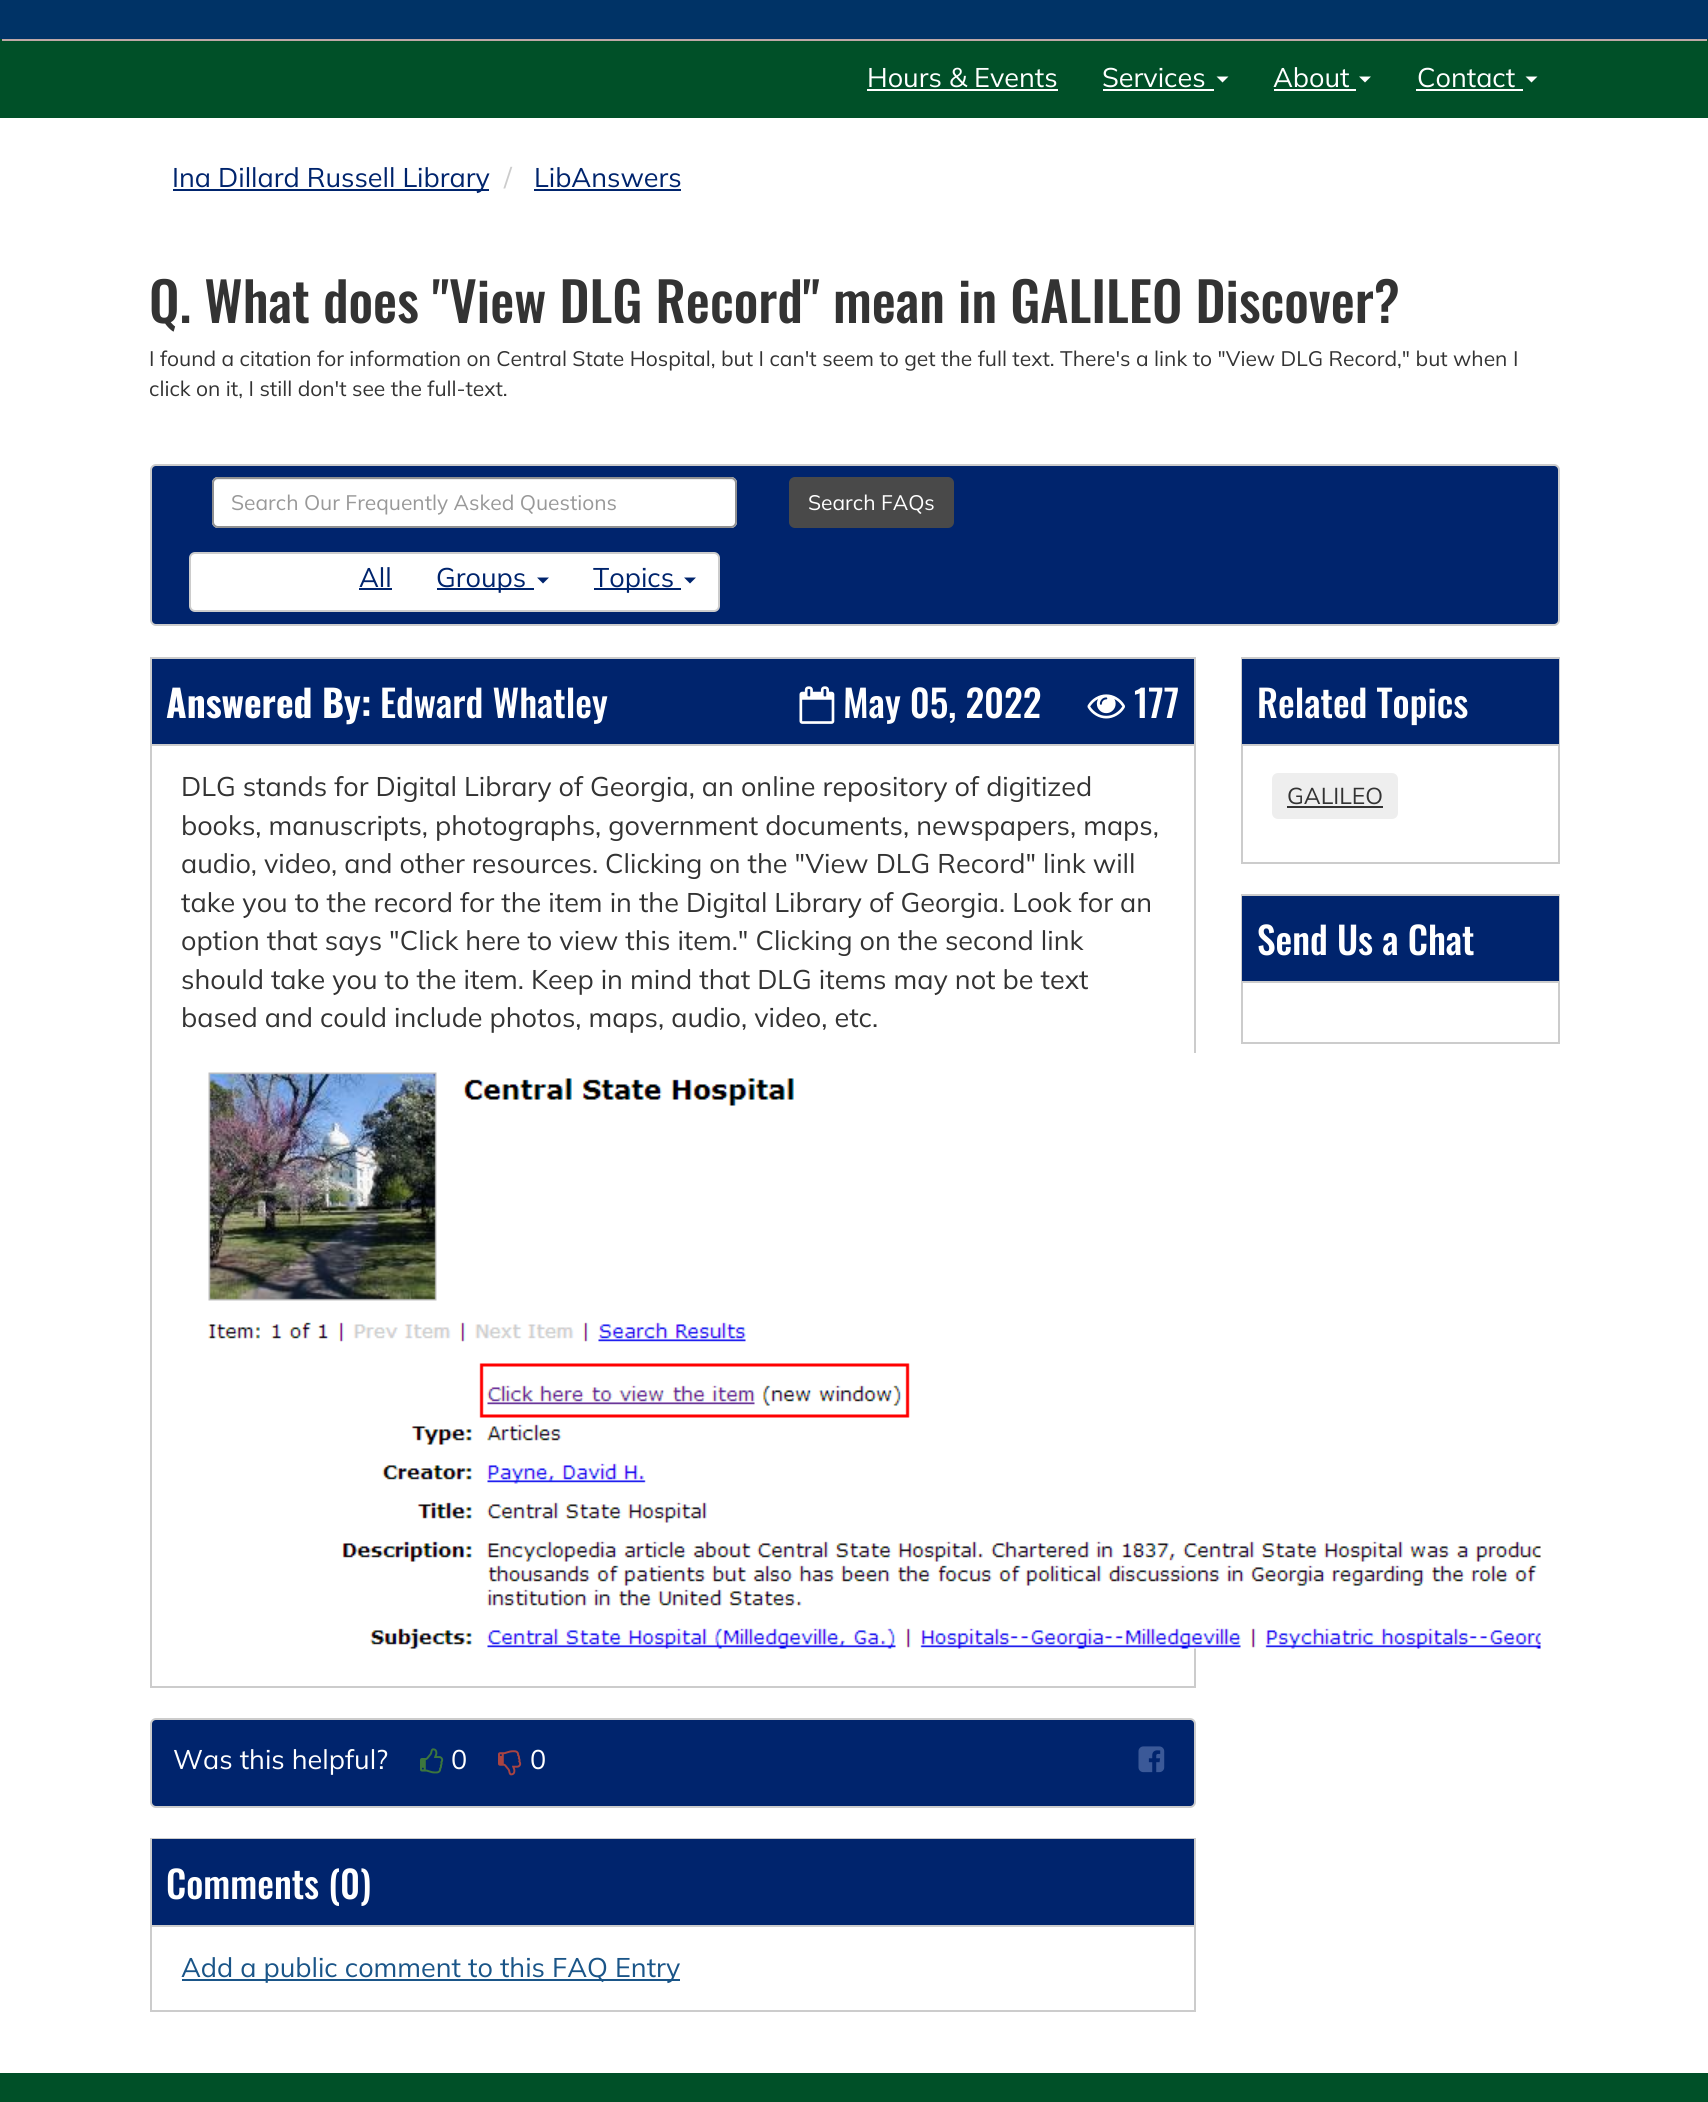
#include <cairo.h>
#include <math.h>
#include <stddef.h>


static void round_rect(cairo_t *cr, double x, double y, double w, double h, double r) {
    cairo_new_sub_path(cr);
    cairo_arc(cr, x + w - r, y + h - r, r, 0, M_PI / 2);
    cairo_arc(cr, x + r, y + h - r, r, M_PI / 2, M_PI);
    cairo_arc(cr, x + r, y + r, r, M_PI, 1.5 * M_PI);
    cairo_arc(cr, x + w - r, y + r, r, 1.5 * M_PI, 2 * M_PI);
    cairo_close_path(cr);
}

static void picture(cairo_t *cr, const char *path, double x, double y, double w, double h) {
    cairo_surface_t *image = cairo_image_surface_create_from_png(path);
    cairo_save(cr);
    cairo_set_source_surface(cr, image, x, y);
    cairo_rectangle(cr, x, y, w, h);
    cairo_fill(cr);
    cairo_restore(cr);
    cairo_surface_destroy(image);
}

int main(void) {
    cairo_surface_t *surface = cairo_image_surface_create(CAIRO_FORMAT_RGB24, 1708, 2102);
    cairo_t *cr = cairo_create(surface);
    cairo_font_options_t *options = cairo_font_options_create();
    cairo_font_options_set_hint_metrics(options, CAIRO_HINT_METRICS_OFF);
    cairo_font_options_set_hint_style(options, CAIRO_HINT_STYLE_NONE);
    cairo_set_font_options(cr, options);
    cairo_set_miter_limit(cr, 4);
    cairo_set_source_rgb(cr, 1, 1, 1);
    cairo_paint(cr);
    cairo_set_source_rgb(cr, 0, 0.2, 0.4);
    cairo_rectangle(cr, 0, 0, 1708, 39);
    cairo_fill(cr);
    cairo_set_source_rgb(cr, 0, 0.314, 0.157);
    cairo_rectangle(cr, 2, 41, 1705, 75);
    cairo_fill(cr);
    cairo_set_source_rgb(cr, 0.745, 0.659, 0.655);
    cairo_rectangle(cr, 0, 39, 1708, 2);
    cairo_fill(cr);
    cairo_set_source_rgb(cr, 0, 0.314, 0.157);
    cairo_rectangle(cr, 1707, 39, 1, 78);
    cairo_fill(cr);
    cairo_rectangle(cr, 0, 116, 1708, 2);
    cairo_fill(cr);
    cairo_rectangle(cr, 0, 39, 2, 78);
    cairo_fill(cr);
    cairo_select_font_face(cr, "Mulish", CAIRO_FONT_SLANT_NORMAL, CAIRO_FONT_WEIGHT_NORMAL);
    cairo_set_font_size(cr, 27);
    cairo_set_source_rgb(cr, 1, 1, 1);
    cairo_move_to(cr, 867, 87);
    cairo_show_text(cr, "Hours & Events");
    cairo_rectangle(cr, 867, 89, 191, 2);
    cairo_fill(cr);
    cairo_move_to(cr, 1102, 87);
    cairo_show_text(cr, "Services");
    cairo_rectangle(cr, 1103, 89, 111, 2);
    cairo_fill(cr);
    cairo_new_path(cr);
    cairo_move_to(cr, 1216.5, 76.5);
    cairo_line_to(cr, 1228.5, 76.5);
    cairo_line_to(cr, 1222.5, 82.5);
    cairo_close_path(cr);
    cairo_fill(cr);
    cairo_move_to(cr, 1273, 87);
    cairo_show_text(cr, "About");
    cairo_rectangle(cr, 1274, 89, 82, 2);
    cairo_fill(cr);
    cairo_new_path(cr);
    cairo_move_to(cr, 1359, 76.5);
    cairo_line_to(cr, 1371, 76.5);
    cairo_line_to(cr, 1365, 82.5);
    cairo_close_path(cr);
    cairo_fill(cr);
    cairo_move_to(cr, 1417, 87);
    cairo_show_text(cr, "Contact");
    cairo_rectangle(cr, 1416, 89, 107, 2);
    cairo_fill(cr);
    cairo_new_path(cr);
    cairo_move_to(cr, 1525.5, 76.5);
    cairo_line_to(cr, 1537.5, 76.5);
    cairo_line_to(cr, 1531.5, 82.5);
    cairo_close_path(cr);
    cairo_fill(cr);
    cairo_set_source_rgb(cr, 0, 0.141, 0.427);
    cairo_rectangle(cr, 173, 189, 316, 2);
    cairo_fill(cr);
    cairo_move_to(cr, 172, 187);
    cairo_show_text(cr, "Ina Dillard Russell Library");
    cairo_set_source_rgb(cr, 0.8, 0.8, 0.8);
    cairo_move_to(cr, 504, 187);
    cairo_show_text(cr, "/");
    cairo_set_source_rgb(cr, 0, 0.141, 0.427);
    cairo_move_to(cr, 534, 187);
    cairo_show_text(cr, "LibAnswers");
    cairo_rectangle(cr, 534, 189, 147, 2);
    cairo_fill(cr);
    cairo_select_font_face(cr, "Oswald Medium", CAIRO_FONT_SLANT_NORMAL, CAIRO_FONT_WEIGHT_NORMAL);
    cairo_set_font_size(cr, 54);
    cairo_set_source_rgb(cr, 0.2, 0.2, 0.2);
    cairo_move_to(cr, 149, 323);
    cairo_show_text(cr, "Q. What does \"View DLG Record\" mean in GALILEO Discover?");
    cairo_select_font_face(cr, "Mulish", CAIRO_FONT_SLANT_NORMAL, CAIRO_FONT_WEIGHT_NORMAL);
    cairo_set_font_size(cr, 21);
    cairo_move_to(cr, 149, 366);
    cairo_show_text(cr, "I found a citation for information on Central State Hospital, but I can't seem to get the full text. There's a link to \"View DLG Record,\" but when I");
    cairo_move_to(cr, 149, 396);
    cairo_show_text(cr, "click on it, I still don't see the full-text.");
    cairo_set_source_rgb(cr, 0, 0.141, 0.427);
    round_rect(cr, 151, 465, 1408, 160, 5);
    cairo_fill_preserve(cr);
    cairo_set_source_rgb(cr, 0.8, 0.8, 0.8);
    cairo_stroke(cr);
    cairo_set_source_rgb(cr, 1, 1, 1);
    round_rect(cr, 212, 477, 525, 51, 6);
    cairo_fill(cr);
    cairo_set_source_rgb(cr, 0.925, 0.925, 0.925);
    cairo_new_path(cr);
    cairo_move_to(cr, 218, 480);
    cairo_line_to(cr, 730, 480);
    cairo_curve_to(cr, 733, 480, 735, 482, 735, 484);
    cairo_curve_to(cr, 735, 481, 733, 479, 730, 479);
    cairo_line_to(cr, 218, 479);
    cairo_curve_to(cr, 215, 479, 213, 481, 213, 484);
    cairo_curve_to(cr, 213, 482, 215, 480, 218, 480);
    cairo_close_path(cr);
    cairo_fill(cr);
    round_rect(cr, 213, 478, 523, 49, 5);
    cairo_set_source_rgb(cr, 0.569, 0.569, 0.569);
    cairo_stroke(cr);
    cairo_set_source_rgb(cr, 0.6, 0.6, 0.6);
    cairo_move_to(cr, 231, 510);
    cairo_show_text(cr, "Search Our Frequently Asked Questions");
    cairo_set_source_rgb(cr, 0.286, 0.286, 0.286);
    round_rect(cr, 790, 478, 163, 49, 5);
    cairo_fill_preserve(cr);
    cairo_stroke(cr);
    cairo_set_source_rgb(cr, 1, 1, 1);
    cairo_move_to(cr, 808, 510);
    cairo_show_text(cr, "Search FAQs");
    round_rect(cr, 190, 553, 529, 58, 5);
    cairo_fill_preserve(cr);
    cairo_set_source_rgb(cr, 0.8, 0.8, 0.8);
    cairo_stroke(cr);
    cairo_set_font_size(cr, 27);
    cairo_set_source_rgb(cr, 0, 0.141, 0.427);
    cairo_move_to(cr, 359, 587);
    cairo_show_text(cr, "All");
    cairo_rectangle(cr, 359, 588, 33, 2);
    cairo_fill(cr);
    cairo_rectangle(cr, 437, 588, 97, 2);
    cairo_fill(cr);
    cairo_move_to(cr, 436, 587);
    cairo_show_text(cr, "Groups");
    cairo_new_path(cr);
    cairo_move_to(cr, 537, 577.5);
    cairo_line_to(cr, 549, 577.5);
    cairo_line_to(cr, 543, 583.5);
    cairo_close_path(cr);
    cairo_fill(cr);
    cairo_rectangle(cr, 594, 588, 87, 2);
    cairo_fill(cr);
    cairo_move_to(cr, 593, 587);
    cairo_show_text(cr, "Topics");
    cairo_new_path(cr);
    cairo_move_to(cr, 684, 577.5);
    cairo_line_to(cr, 696, 577.5);
    cairo_line_to(cr, 690, 583.5);
    cairo_close_path(cr);
    cairo_fill(cr);
    cairo_rectangle(cr, 151, 658, 1044, 1029);
    cairo_set_source_rgb(cr, 0.8, 0.8, 0.8);
    cairo_stroke(cr);
    cairo_set_source_rgb(cr, 0, 0.141, 0.427);
    cairo_rectangle(cr, 152, 659, 1042, 85);
    cairo_fill(cr);
    cairo_set_source_rgb(cr, 0.8, 0.8, 0.8);
    cairo_rectangle(cr, 152, 744, 1042, 2);
    cairo_fill(cr);
    cairo_select_font_face(cr, "Oswald", CAIRO_FONT_SLANT_NORMAL, CAIRO_FONT_WEIGHT_BOLD);
    cairo_set_font_size(cr, 37.5);
    cairo_set_source_rgb(cr, 1, 1, 1);
    cairo_move_to(cr, 166, 718);
    cairo_show_text(cr, "Answered By:");
    cairo_select_font_face(cr, "Oswald Medium", CAIRO_FONT_SLANT_NORMAL, CAIRO_FONT_WEIGHT_NORMAL);
    cairo_move_to(cr, 380, 718);
    cairo_show_text(cr, "Edward Whatley");
    picture(cr, "img1.png", 799, 686, 36, 38);
    cairo_move_to(cr, 843, 718);
    cairo_show_text(cr, "May 05, 2022");
    picture(cr, "img2.png", 1087, 694, 38, 25);
    cairo_move_to(cr, 1134, 718);
    cairo_show_text(cr, "177");
    cairo_select_font_face(cr, "Mulish", CAIRO_FONT_SLANT_NORMAL, CAIRO_FONT_WEIGHT_NORMAL);
    cairo_set_font_size(cr, 27);
    cairo_set_source_rgb(cr, 0.2, 0.2, 0.2);
    cairo_move_to(cr, 181, 796);
    cairo_show_text(cr, "DLG stands for Digital Library of Georgia, an online repository of digitized");
    cairo_move_to(cr, 181, 835);
    cairo_show_text(cr, "books, manuscripts, photographs, government documents, newspapers, maps,");
    cairo_move_to(cr, 181, 873);
    cairo_show_text(cr, "audio, video, and other resources. Clicking on the \"View DLG Record\" link will");
    cairo_move_to(cr, 181, 912);
    cairo_show_text(cr, "take you to the record for the item in the Digital Library of Georgia. Look for an");
    cairo_move_to(cr, 181, 950);
    cairo_show_text(cr, "option that says \"Click here to view this item.\" Clicking on the second link");
    cairo_move_to(cr, 181, 989);
    cairo_show_text(cr, "should take you to the item. Keep in mind that DLG items may not be text");
    cairo_move_to(cr, 181, 1027);
    cairo_show_text(cr, "based and could include photos, maps, audio, video, etc.");
    picture(cr, "img3.png", 208, 1053, 1333, 596);
    cairo_set_source_rgb(cr, 0, 0.141, 0.427);
    round_rect(cr, 151, 1719, 1044, 88, 5);
    cairo_fill_preserve(cr);
    cairo_set_source_rgb(cr, 0.8, 0.8, 0.8);
    cairo_stroke(cr);
    cairo_set_source_rgb(cr, 1, 1, 1);
    cairo_move_to(cr, 173, 1769);
    cairo_show_text(cr, "Was this helpful?");
    picture(cr, "img4.png", 420, 1748, 24, 26);
    cairo_move_to(cr, 451, 1769);
    cairo_show_text(cr, "0");
    picture(cr, "img5.png", 498, 1750, 24, 26);
    cairo_move_to(cr, 530, 1769);
    cairo_show_text(cr, "0");
    picture(cr, "img6.png", 1138, 1746, 27, 27);
    cairo_rectangle(cr, 151, 1839, 1044, 172);
    cairo_set_source_rgb(cr, 0.8, 0.8, 0.8);
    cairo_stroke(cr);
    cairo_set_source_rgb(cr, 0, 0.141, 0.427);
    cairo_rectangle(cr, 152, 1839, 1042, 86);
    cairo_fill(cr);
    cairo_set_source_rgb(cr, 0.8, 0.8, 0.8);
    cairo_rectangle(cr, 152, 1925, 1042, 2);
    cairo_fill(cr);
    cairo_select_font_face(cr, "Oswald Medium", CAIRO_FONT_SLANT_NORMAL, CAIRO_FONT_WEIGHT_NORMAL);
    cairo_set_font_size(cr, 37.5);
    cairo_set_source_rgb(cr, 1, 1, 1);
    cairo_move_to(cr, 166, 1899);
    cairo_show_text(cr, "Comments (0)");
    cairo_set_source_rgb(cr, 0.102, 0.333, 0.533);
    cairo_rectangle(cr, 182, 1979, 498, 2);
    cairo_fill(cr);
    cairo_select_font_face(cr, "Mulish", CAIRO_FONT_SLANT_NORMAL, CAIRO_FONT_WEIGHT_NORMAL);
    cairo_set_font_size(cr, 27);
    cairo_move_to(cr, 181, 1977);
    cairo_show_text(cr, "Add a public comment to this FAQ Entry");
    cairo_rectangle(cr, 1242, 658, 317, 205);
    cairo_set_source_rgb(cr, 0.8, 0.8, 0.8);
    cairo_stroke(cr);
    cairo_set_source_rgb(cr, 0, 0.141, 0.427);
    cairo_rectangle(cr, 1242, 659, 317, 85);
    cairo_fill(cr);
    cairo_set_source_rgb(cr, 0.8, 0.8, 0.8);
    cairo_rectangle(cr, 1242, 744, 317, 2);
    cairo_fill(cr);
    cairo_select_font_face(cr, "Oswald Medium", CAIRO_FONT_SLANT_NORMAL, CAIRO_FONT_WEIGHT_NORMAL);
    cairo_set_font_size(cr, 37.5);
    cairo_set_source_rgb(cr, 1, 1, 1);
    cairo_move_to(cr, 1257, 718);
    cairo_show_text(cr, "Related Topics");
    cairo_set_source_rgb(cr, 0.933, 0.933, 0.933);
    round_rect(cr, 1272, 773, 126, 46, 6);
    cairo_fill(cr);
    cairo_select_font_face(cr, "Mulish", CAIRO_FONT_SLANT_NORMAL, CAIRO_FONT_WEIGHT_NORMAL);
    cairo_set_font_size(cr, 23);
    cairo_set_source_rgb(cr, 0.2, 0.2, 0.2);
    cairo_move_to(cr, 1287, 804);
    cairo_show_text(cr, "GALILEO");
    cairo_rectangle(cr, 1287, 806, 96, 2);
    cairo_fill(cr);
    cairo_rectangle(cr, 1242, 895, 317, 148);
    cairo_set_source_rgb(cr, 0.8, 0.8, 0.8);
    cairo_stroke(cr);
    cairo_set_source_rgb(cr, 0, 0.141, 0.427);
    cairo_rectangle(cr, 1242, 896, 317, 85);
    cairo_fill(cr);
    cairo_set_source_rgb(cr, 0.8, 0.8, 0.8);
    cairo_rectangle(cr, 1242, 981, 317, 2);
    cairo_fill(cr);
    cairo_select_font_face(cr, "Oswald Medium", CAIRO_FONT_SLANT_NORMAL, CAIRO_FONT_WEIGHT_NORMAL);
    cairo_set_font_size(cr, 37.5);
    cairo_set_source_rgb(cr, 1, 1, 1);
    cairo_move_to(cr, 1257, 955);
    cairo_show_text(cr, "Send Us a Chat");
    cairo_set_source_rgb(cr, 0, 0.314, 0.157);
    cairo_rectangle(cr, 0, 2073, 1708, 29);
    cairo_fill(cr);
    cairo_surface_write_to_png(surface, "page.png");
    cairo_font_options_destroy(options);
    cairo_destroy(cr);
    cairo_surface_destroy(surface);
    return 0;
}
